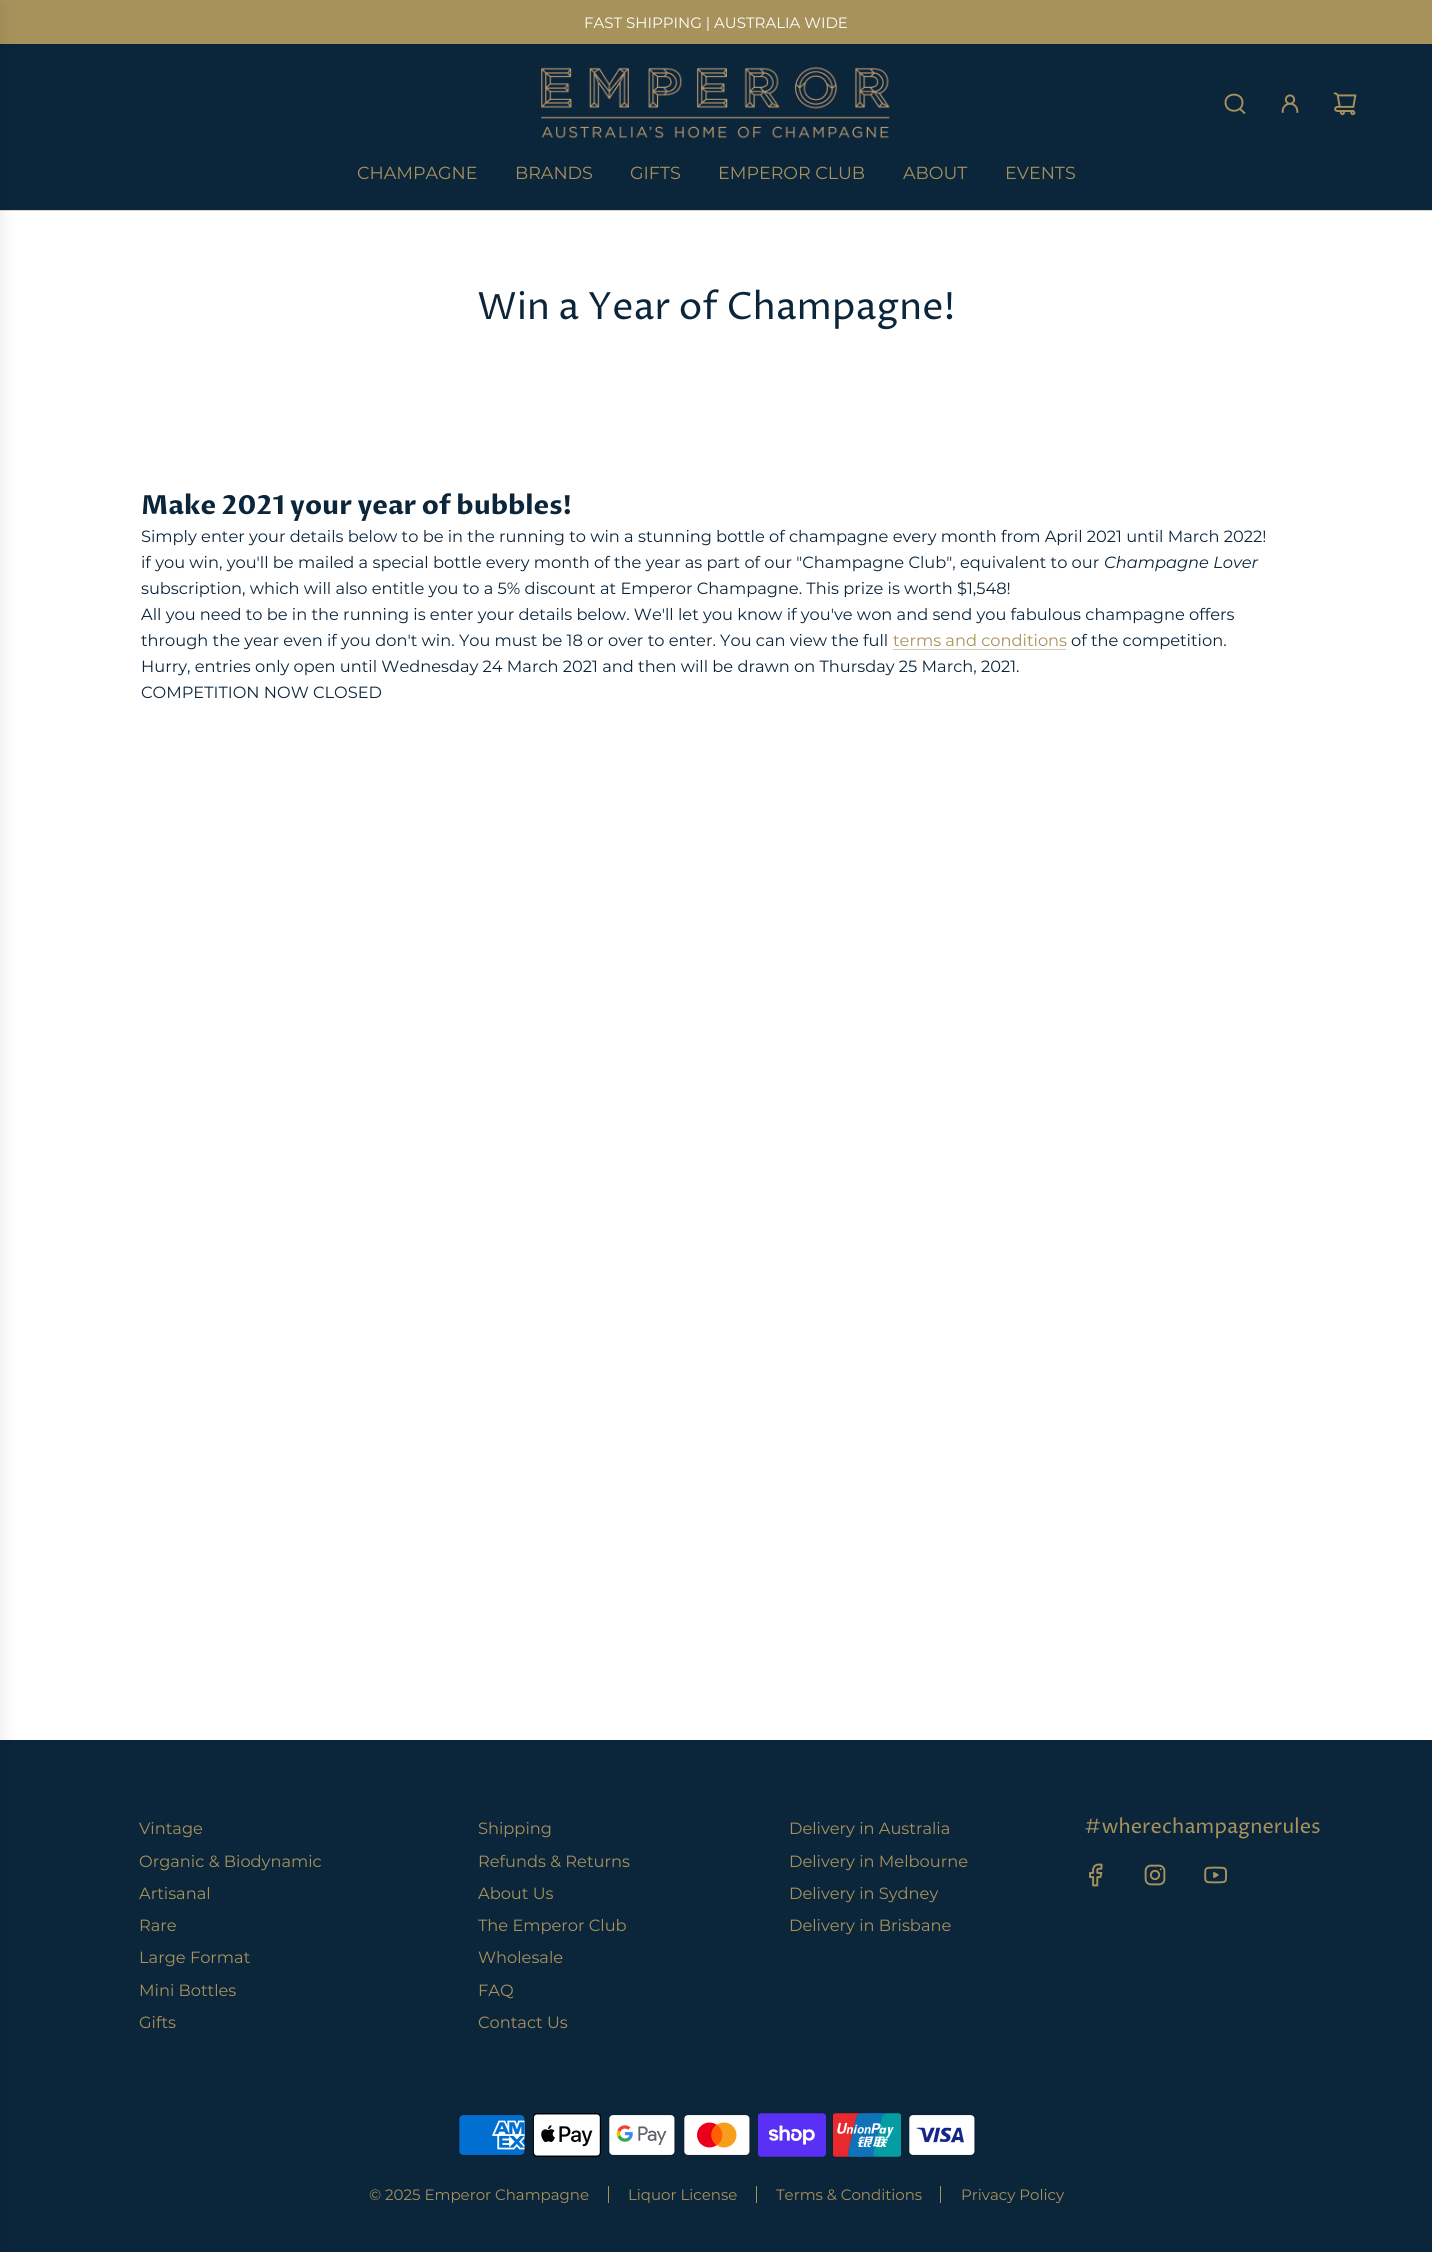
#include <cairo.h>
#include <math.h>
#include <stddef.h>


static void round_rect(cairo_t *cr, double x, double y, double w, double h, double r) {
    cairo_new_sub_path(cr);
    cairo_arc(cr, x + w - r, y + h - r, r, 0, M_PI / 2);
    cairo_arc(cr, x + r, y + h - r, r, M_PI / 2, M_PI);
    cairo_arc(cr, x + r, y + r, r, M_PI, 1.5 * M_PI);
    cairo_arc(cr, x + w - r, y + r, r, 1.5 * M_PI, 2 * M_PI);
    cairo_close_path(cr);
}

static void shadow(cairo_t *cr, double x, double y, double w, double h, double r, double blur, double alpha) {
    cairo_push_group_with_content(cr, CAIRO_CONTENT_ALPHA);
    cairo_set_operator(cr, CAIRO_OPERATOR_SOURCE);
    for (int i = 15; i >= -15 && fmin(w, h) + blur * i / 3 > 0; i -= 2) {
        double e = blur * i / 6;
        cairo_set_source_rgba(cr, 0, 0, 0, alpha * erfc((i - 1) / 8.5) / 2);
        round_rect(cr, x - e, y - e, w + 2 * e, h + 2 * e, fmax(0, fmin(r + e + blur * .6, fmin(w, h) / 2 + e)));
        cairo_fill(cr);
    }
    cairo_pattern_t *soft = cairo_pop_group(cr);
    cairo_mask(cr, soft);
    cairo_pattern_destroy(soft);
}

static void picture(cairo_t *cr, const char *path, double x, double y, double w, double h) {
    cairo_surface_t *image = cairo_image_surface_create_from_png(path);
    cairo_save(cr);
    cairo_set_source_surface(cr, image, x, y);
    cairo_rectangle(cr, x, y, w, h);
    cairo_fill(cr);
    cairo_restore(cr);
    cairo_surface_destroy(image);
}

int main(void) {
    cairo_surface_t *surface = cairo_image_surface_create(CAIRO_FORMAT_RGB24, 1432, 2252);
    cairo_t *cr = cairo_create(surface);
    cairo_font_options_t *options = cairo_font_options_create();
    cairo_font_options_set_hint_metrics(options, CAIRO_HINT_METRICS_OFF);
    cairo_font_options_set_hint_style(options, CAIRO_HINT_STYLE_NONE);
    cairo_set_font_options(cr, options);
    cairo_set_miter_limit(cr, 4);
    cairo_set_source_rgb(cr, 1, 1, 1);
    cairo_paint(cr);
    cairo_set_source_rgb(cr, 0.655, 0.573, 0.357);
    cairo_rectangle(cr, 0, 0, 1432, 44);
    cairo_fill(cr);
    cairo_select_font_face(cr, "Montserrat", CAIRO_FONT_SLANT_NORMAL, CAIRO_FONT_WEIGHT_NORMAL);
    cairo_set_font_size(cr, 15);
    cairo_set_source_rgb(cr, 1, 1, 1);
    cairo_move_to(cr, 584, 28);
    cairo_show_text(cr, "FAST SHIPPING | AUSTRALIA WIDE");
    cairo_set_source_rgb(cr, 0.043, 0.145, 0.231);
    cairo_rectangle(cr, 0, 44, 1432, 166);
    cairo_fill(cr);
    cairo_set_source_rgb(cr, 0.867, 0.839, 0.773);
    cairo_rectangle(cr, 0, 210, 1432, 1);
    cairo_fill(cr);
    cairo_set_source_rgb(cr, 0.043, 0.145, 0.231);
    cairo_rectangle(cr, 0, 1740, 1432, 512);
    cairo_fill(cr);
    cairo_set_source_rgb(cr, 0, 0, 0);
    shadow(cr, -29, 6, 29, 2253, 0, 9.5, 0.1);
    picture(cr, "img1.png", 541, 67, 349, 72);
    cairo_new_path(cr);
    cairo_move_to(cr, 1240, 109);
    cairo_line_to(cr, 1244.5, 113);
    cairo_move_to(cr, 1225.5, 102.5);
    cairo_curve_to(cr, 1225.5, 113.5, 1242.5, 113.5, 1242.5, 102.5);
    cairo_curve_to(cr, 1242.5, 92, 1225.5, 92, 1225.5, 102.5);
    cairo_close_path(cr);
    cairo_set_source_rgb(cr, 0.655, 0.573, 0.357);
    cairo_set_line_width(cr, 1.9);
    cairo_set_line_cap(cr, CAIRO_LINE_CAP_ROUND);
    cairo_set_line_join(cr, CAIRO_LINE_JOIN_ROUND);
    cairo_stroke(cr);
    picture(cr, "img2.png", 1281, 94, 18, 19);
    picture(cr, "img3.png", 1333, 92, 24, 24);
    cairo_set_font_size(cr, 17.5);
    cairo_move_to(cr, 357, 179);
    cairo_show_text(cr, "CHAMPAGNE");
    cairo_move_to(cr, 515, 179);
    cairo_show_text(cr, "BRANDS");
    cairo_move_to(cr, 630, 179);
    cairo_show_text(cr, "GIFTS");
    cairo_move_to(cr, 718, 179);
    cairo_show_text(cr, "EMPEROR CLUB");
    cairo_move_to(cr, 903, 179);
    cairo_show_text(cr, "ABOUT");
    cairo_move_to(cr, 1005, 179);
    cairo_show_text(cr, "EVENTS");
    cairo_select_font_face(cr, "Proza Libre", CAIRO_FONT_SLANT_NORMAL, CAIRO_FONT_WEIGHT_NORMAL);
    cairo_set_font_size(cr, 37.5);
    cairo_set_source_rgb(cr, 0.043, 0.145, 0.231);
    cairo_move_to(cr, 477, 319);
    cairo_show_text(cr, "Win a Year of Champagne!");
    cairo_select_font_face(cr, "Proza Libre", CAIRO_FONT_SLANT_NORMAL, CAIRO_FONT_WEIGHT_BOLD);
    cairo_set_font_size(cr, 26.25);
    cairo_move_to(cr, 141, 514);
    cairo_show_text(cr, "Make 2021 your year of bubbles!");
    cairo_select_font_face(cr, "Montserrat", CAIRO_FONT_SLANT_NORMAL, CAIRO_FONT_WEIGHT_NORMAL);
    cairo_set_font_size(cr, 16.25);
    cairo_move_to(cr, 141, 542);
    cairo_show_text(cr, "Simply enter your details below to be in the running to win a stunning bottle of champagne every month from April 2021 until March 2022!");
    cairo_move_to(cr, 141, 568);
    cairo_show_text(cr, "if you win, you'll be mailed a special bottle every month of the year as part of our \"Champagne Club\", equivalent to our");
    cairo_select_font_face(cr, "Montserrat", CAIRO_FONT_SLANT_ITALIC, CAIRO_FONT_WEIGHT_NORMAL);
    cairo_move_to(cr, 1104, 568);
    cairo_show_text(cr, "Champagne Lover");
    cairo_select_font_face(cr, "Montserrat", CAIRO_FONT_SLANT_NORMAL, CAIRO_FONT_WEIGHT_NORMAL);
    cairo_move_to(cr, 141, 594);
    cairo_show_text(cr, "subscription, which will also entitle you to a 5% discount at Emperor Champagne. This prize is worth $1,548!");
    cairo_move_to(cr, 141, 620);
    cairo_show_text(cr, "All you need to be in the running is enter your details below. We'll let you know if you've won and send you fabulous champagne offers");
    cairo_move_to(cr, 141, 646);
    cairo_show_text(cr, "through the year even if you don't win. You must be 18 or over to enter. You can view the full");
    cairo_set_source_rgb(cr, 0.655, 0.573, 0.357);
    cairo_move_to(cr, 893, 646);
    cairo_show_text(cr, "terms and conditions");
    cairo_set_source_rgb(cr, 0.827, 0.788, 0.678);
    cairo_rectangle(cr, 893, 649, 173, 1);
    cairo_fill(cr);
    cairo_set_source_rgb(cr, 0.043, 0.145, 0.231);
    cairo_move_to(cr, 1071, 646);
    cairo_show_text(cr, "of the competition.");
    cairo_move_to(cr, 141, 672);
    cairo_show_text(cr, "Hurry, entries only open until Wednesday 24 March 2021 and then will be drawn on Thursday 25 March, 2021.");
    cairo_move_to(cr, 141, 698);
    cairo_show_text(cr, "COMPETITION NOW CLOSED");
    cairo_set_source_rgb(cr, 0.655, 0.573, 0.357);
    cairo_move_to(cr, 139, 1834);
    cairo_show_text(cr, "Vintage");
    cairo_move_to(cr, 139, 1867);
    cairo_show_text(cr, "Organic & Biodynamic");
    cairo_move_to(cr, 139, 1899);
    cairo_show_text(cr, "Artisanal");
    cairo_move_to(cr, 139, 1931);
    cairo_show_text(cr, "Rare");
    cairo_move_to(cr, 139, 1963);
    cairo_show_text(cr, "Large Format");
    cairo_move_to(cr, 139, 1996);
    cairo_show_text(cr, "Mini Bottles");
    cairo_move_to(cr, 139, 2028);
    cairo_show_text(cr, "Gifts");
    cairo_move_to(cr, 478, 1834);
    cairo_show_text(cr, "Shipping");
    cairo_move_to(cr, 478, 1867);
    cairo_show_text(cr, "Refunds & Returns");
    cairo_move_to(cr, 478, 1899);
    cairo_show_text(cr, "About Us");
    cairo_move_to(cr, 478, 1931);
    cairo_show_text(cr, "The Emperor Club");
    cairo_move_to(cr, 478, 1963);
    cairo_show_text(cr, "Wholesale");
    cairo_move_to(cr, 478, 1996);
    cairo_show_text(cr, "FAQ");
    cairo_move_to(cr, 478, 2028);
    cairo_show_text(cr, "Contact Us");
    cairo_move_to(cr, 789, 1834);
    cairo_show_text(cr, "Delivery in Australia");
    cairo_move_to(cr, 789, 1867);
    cairo_show_text(cr, "Delivery in Melbourne");
    cairo_move_to(cr, 789, 1899);
    cairo_show_text(cr, "Delivery in Sydney");
    cairo_move_to(cr, 789, 1931);
    cairo_show_text(cr, "Delivery in Brisbane");
    cairo_select_font_face(cr, "Proza Libre", CAIRO_FONT_SLANT_NORMAL, CAIRO_FONT_WEIGHT_NORMAL);
    cairo_set_font_size(cr, 20);
    cairo_move_to(cr, 1084, 1833);
    cairo_show_text(cr, "#wherechampagnerules");
    picture(cr, "img4.png", 1089, 1863, 14, 24);
    picture(cr, "img5.png", 1144, 1864, 22, 22);
    picture(cr, "img6.png", 1204, 1866, 23, 18);
    picture(cr, "img7.png", 458, 2114, 68, 42);
    picture(cr, "img8.png", 533, 2113, 68, 44);
    picture(cr, "img9.png", 608, 2114, 68, 42);
    picture(cr, "img10.png", 683, 2114, 68, 42);
    picture(cr, "img11.png", 758, 2113, 68, 44);
    picture(cr, "img12.png", 833, 2113, 68, 44);
    picture(cr, "img13.png", 908, 2114, 68, 42);
    cairo_select_font_face(cr, "Montserrat", CAIRO_FONT_SLANT_NORMAL, CAIRO_FONT_WEIGHT_NORMAL);
    cairo_set_font_size(cr, 15);
    cairo_move_to(cr, 369, 2200);
    cairo_show_text(cr, "© 2025 Emperor Champagne");
    cairo_rectangle(cr, 608, 2186, 1, 17);
    cairo_fill(cr);
    cairo_move_to(cr, 628, 2200);
    cairo_show_text(cr, "Liquor License");
    cairo_rectangle(cr, 756, 2186, 1, 17);
    cairo_fill(cr);
    cairo_move_to(cr, 776, 2200);
    cairo_show_text(cr, "Terms & Conditions");
    cairo_rectangle(cr, 940, 2186, 1, 17);
    cairo_fill(cr);
    cairo_move_to(cr, 961, 2200);
    cairo_show_text(cr, "Privacy Policy");
    cairo_surface_write_to_png(surface, "page.png");
    cairo_font_options_destroy(options);
    cairo_destroy(cr);
    cairo_surface_destroy(surface);
    return 0;
}
